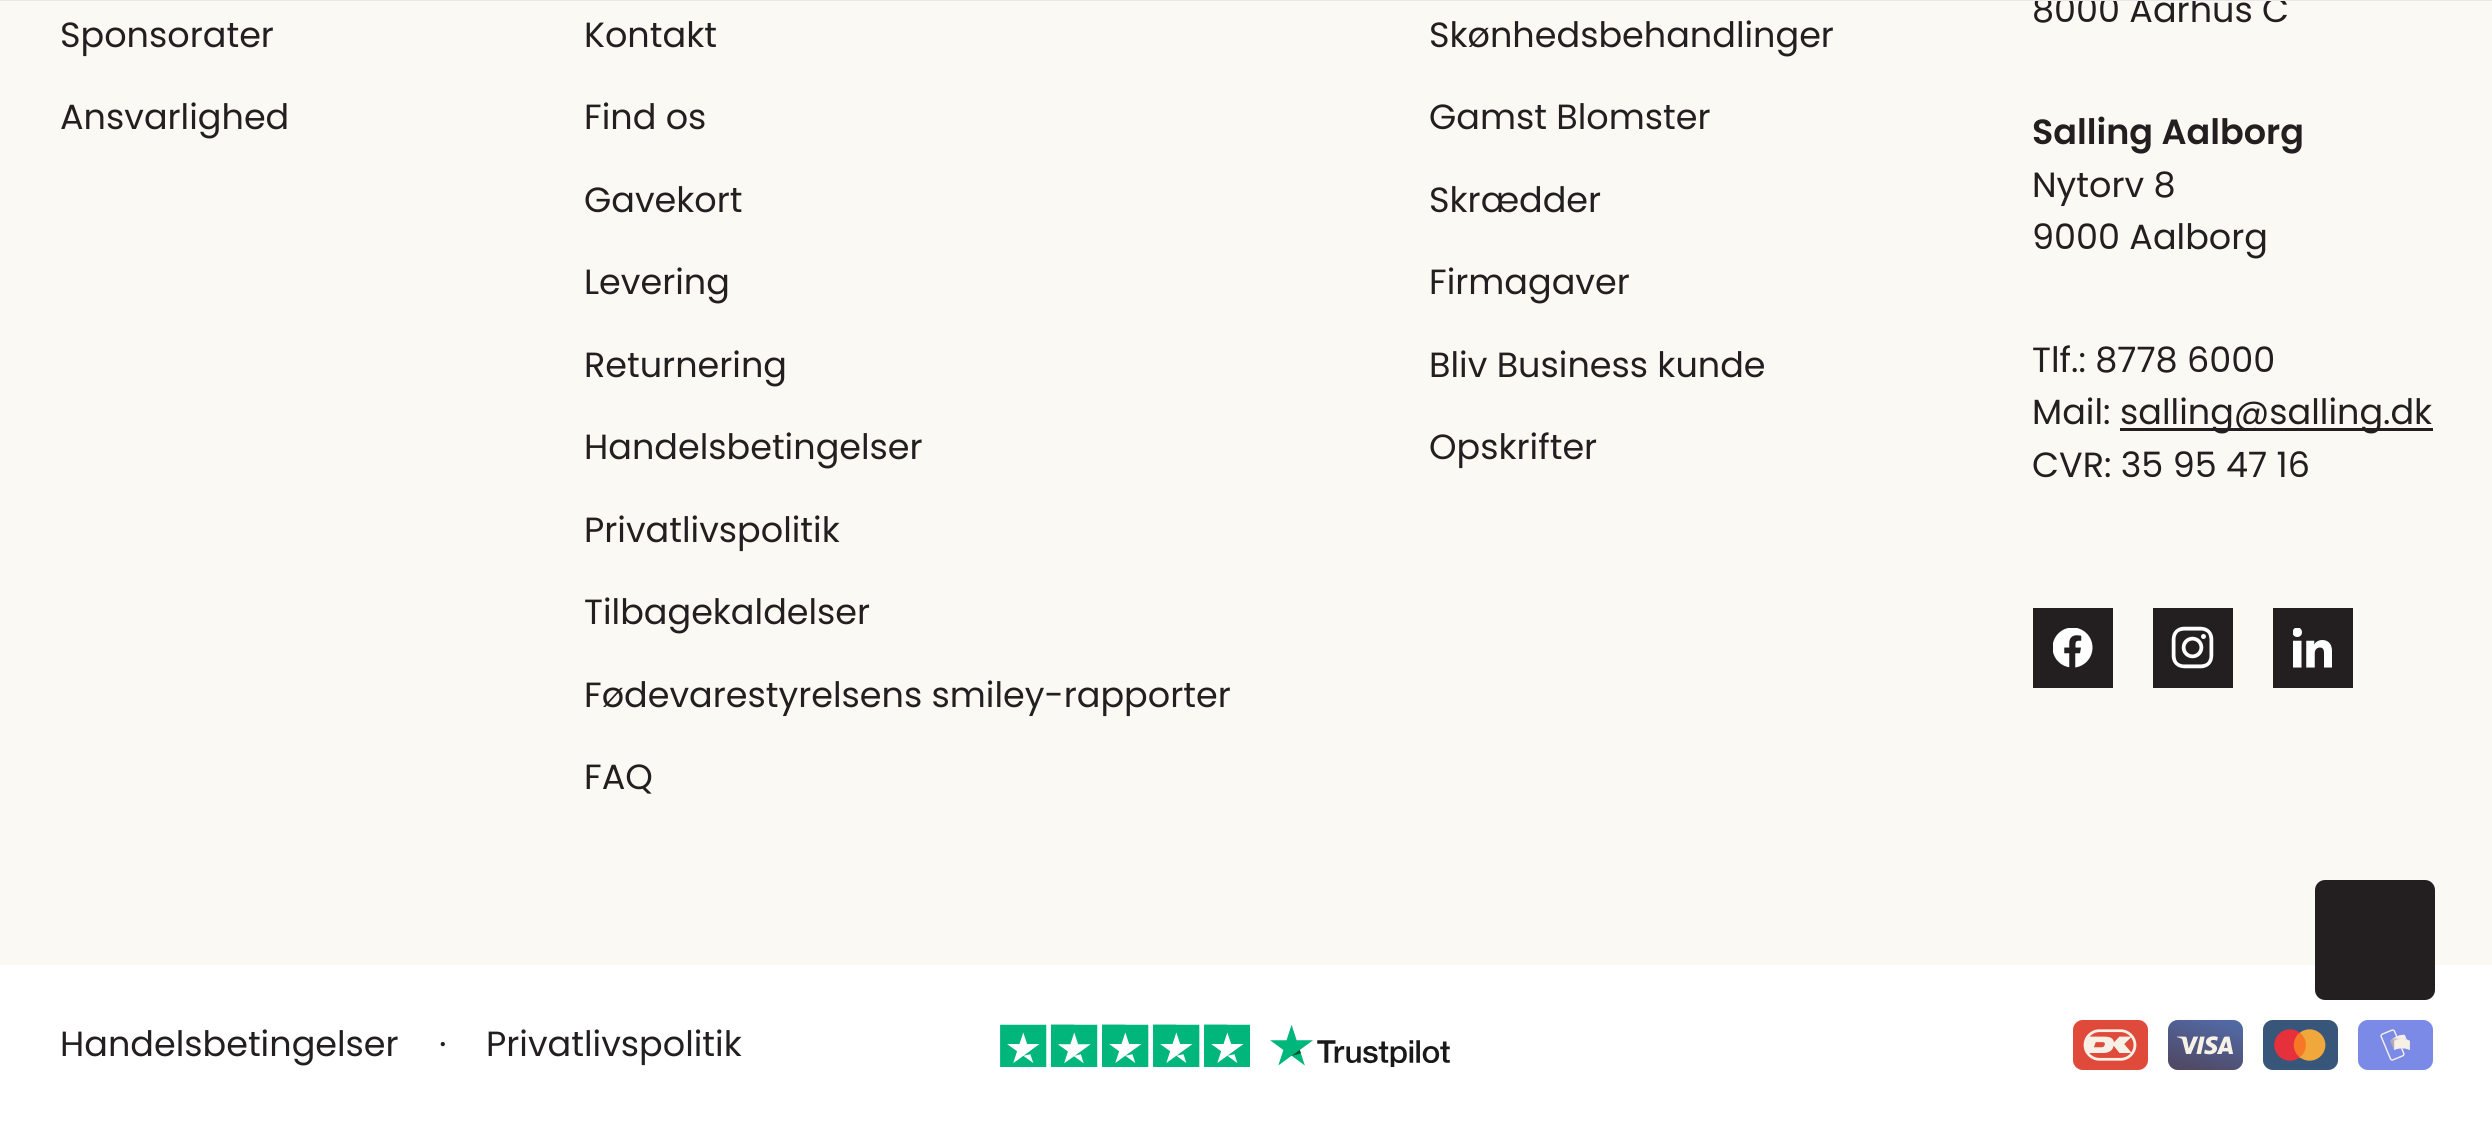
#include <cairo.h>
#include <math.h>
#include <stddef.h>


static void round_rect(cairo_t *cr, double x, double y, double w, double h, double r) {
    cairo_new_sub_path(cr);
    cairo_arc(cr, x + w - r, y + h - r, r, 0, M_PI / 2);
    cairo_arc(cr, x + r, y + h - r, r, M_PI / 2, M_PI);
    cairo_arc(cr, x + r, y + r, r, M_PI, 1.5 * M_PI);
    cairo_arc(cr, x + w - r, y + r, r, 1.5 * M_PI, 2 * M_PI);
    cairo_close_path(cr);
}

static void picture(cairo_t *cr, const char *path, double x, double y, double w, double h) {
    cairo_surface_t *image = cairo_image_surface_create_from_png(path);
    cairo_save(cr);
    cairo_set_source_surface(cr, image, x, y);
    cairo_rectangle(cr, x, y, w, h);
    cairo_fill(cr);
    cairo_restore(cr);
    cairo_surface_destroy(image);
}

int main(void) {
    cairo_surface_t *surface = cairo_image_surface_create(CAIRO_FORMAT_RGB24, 2492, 1123);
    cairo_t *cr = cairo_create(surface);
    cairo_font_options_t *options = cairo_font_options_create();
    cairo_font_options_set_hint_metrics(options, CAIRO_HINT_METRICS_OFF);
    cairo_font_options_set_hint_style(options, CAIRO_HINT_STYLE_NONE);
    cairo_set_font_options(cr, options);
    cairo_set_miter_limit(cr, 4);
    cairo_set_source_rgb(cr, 0.98, 0.973, 0.957);
    cairo_paint(cr);
    cairo_select_font_face(cr, "Poppins", CAIRO_FONT_SLANT_NORMAL, CAIRO_FONT_WEIGHT_NORMAL);
    cairo_set_font_size(cr, 35);
    cairo_set_source_rgb(cr, 0.137, 0.122, 0.125);
    cairo_move_to(cr, 2032, 22);
    cairo_show_text(cr, "8000 Aarhus C");
    cairo_set_source_rgb(cr, 0.914, 0.91, 0.91);
    cairo_rectangle(cr, 0, 0, 2492, 1);
    cairo_fill(cr);
    cairo_set_source_rgb(cr, 0.137, 0.122, 0.125);
    cairo_move_to(cr, 60, 47);
    cairo_show_text(cr, "Sponsorater");
    cairo_move_to(cr, 60, 129);
    cairo_show_text(cr, "Ansvarlighed");
    cairo_move_to(cr, 584, 47);
    cairo_show_text(cr, "Kontakt");
    cairo_move_to(cr, 584, 129);
    cairo_show_text(cr, "Find os");
    cairo_move_to(cr, 584, 212);
    cairo_show_text(cr, "Gavekort");
    cairo_move_to(cr, 584, 294);
    cairo_show_text(cr, "Levering");
    cairo_move_to(cr, 584, 377);
    cairo_show_text(cr, "Returnering");
    cairo_move_to(cr, 584, 459);
    cairo_show_text(cr, "Handelsbetingelser");
    cairo_move_to(cr, 584, 542);
    cairo_show_text(cr, "Privatlivspolitik");
    cairo_move_to(cr, 584, 624);
    cairo_show_text(cr, "Tilbagekaldelser");
    cairo_move_to(cr, 584, 707);
    cairo_show_text(cr, "Fødevarestyrelsens smiley-rapporter");
    cairo_move_to(cr, 584, 789);
    cairo_show_text(cr, "FAQ");
    cairo_move_to(cr, 1429, 47);
    cairo_show_text(cr, "Skønhedsbehandlinger");
    cairo_move_to(cr, 1429, 129);
    cairo_show_text(cr, "Gamst Blomster");
    cairo_move_to(cr, 1429, 212);
    cairo_show_text(cr, "Skrædder");
    cairo_move_to(cr, 1429, 294);
    cairo_show_text(cr, "Firmagaver");
    cairo_move_to(cr, 1429, 377);
    cairo_show_text(cr, "Bliv Business kunde");
    cairo_move_to(cr, 1429, 459);
    cairo_show_text(cr, "Opskrifter");
    cairo_select_font_face(cr, "Poppins SemiBold", CAIRO_FONT_SLANT_NORMAL, CAIRO_FONT_WEIGHT_NORMAL);
    cairo_move_to(cr, 2032, 144);
    cairo_show_text(cr, "Salling Aalborg");
    cairo_select_font_face(cr, "Poppins", CAIRO_FONT_SLANT_NORMAL, CAIRO_FONT_WEIGHT_NORMAL);
    cairo_move_to(cr, 2032, 197);
    cairo_show_text(cr, "Nytorv 8");
    cairo_move_to(cr, 2032, 249);
    cairo_show_text(cr, "9000 Aalborg");
    cairo_move_to(cr, 2032, 372);
    cairo_show_text(cr, "Tlf.: 8778 6000");
    cairo_move_to(cr, 2032, 424);
    cairo_show_text(cr, "Mail:");
    cairo_rectangle(cr, 2120, 428, 313, 3);
    cairo_fill(cr);
    cairo_move_to(cr, 2120, 424);
    cairo_show_text(cr, "salling@salling.dk");
    cairo_move_to(cr, 2032, 477);
    cairo_show_text(cr, "CVR: 35 95 47 16");
    cairo_rectangle(cr, 2033, 608, 80, 80);
    cairo_fill(cr);
    picture(cr, "img1.png", 2053, 628, 40, 40);
    cairo_rectangle(cr, 2153, 608, 80, 80);
    cairo_fill(cr);
    picture(cr, "img2.png", 2171, 626, 43, 43);
    cairo_rectangle(cr, 2273, 608, 80, 80);
    cairo_fill(cr);
    picture(cr, "img3.png", 2293, 628, 39, 40);
    cairo_set_source_rgb(cr, 1, 1, 1);
    cairo_rectangle(cr, 0, 965, 2492, 158);
    cairo_fill(cr);
    cairo_set_source_rgb(cr, 0.137, 0.122, 0.125);
    cairo_move_to(cr, 60, 1056);
    cairo_show_text(cr, "Handelsbetingelser");
    cairo_move_to(cr, 439, 1056);
    cairo_show_text(cr, "·");
    cairo_move_to(cr, 486, 1056);
    cairo_show_text(cr, "Privatlivspolitik");
    picture(cr, "img4.png", 1000, 1024, 450, 43);
    picture(cr, "img5.png", 2073, 1020, 75, 50);
    picture(cr, "img6.png", 2168, 1020, 75, 50);
    picture(cr, "img7.png", 2263, 1020, 75, 50);
    picture(cr, "img8.png", 2358, 1020, 75, 50);
    round_rect(cr, 2315, 880, 120, 120, 10);
    cairo_fill(cr);
    cairo_surface_write_to_png(surface, "page.png");
    cairo_font_options_destroy(options);
    cairo_destroy(cr);
    cairo_surface_destroy(surface);
    return 0;
}
